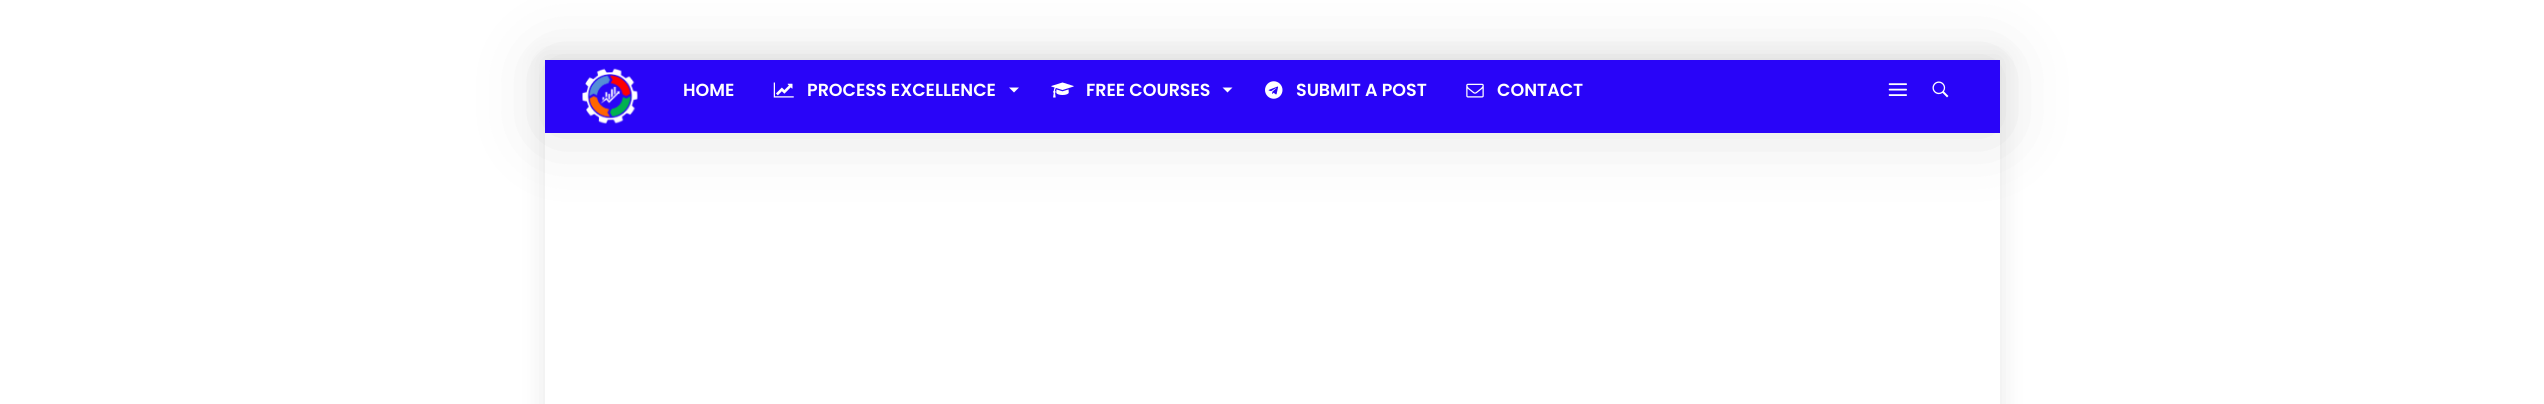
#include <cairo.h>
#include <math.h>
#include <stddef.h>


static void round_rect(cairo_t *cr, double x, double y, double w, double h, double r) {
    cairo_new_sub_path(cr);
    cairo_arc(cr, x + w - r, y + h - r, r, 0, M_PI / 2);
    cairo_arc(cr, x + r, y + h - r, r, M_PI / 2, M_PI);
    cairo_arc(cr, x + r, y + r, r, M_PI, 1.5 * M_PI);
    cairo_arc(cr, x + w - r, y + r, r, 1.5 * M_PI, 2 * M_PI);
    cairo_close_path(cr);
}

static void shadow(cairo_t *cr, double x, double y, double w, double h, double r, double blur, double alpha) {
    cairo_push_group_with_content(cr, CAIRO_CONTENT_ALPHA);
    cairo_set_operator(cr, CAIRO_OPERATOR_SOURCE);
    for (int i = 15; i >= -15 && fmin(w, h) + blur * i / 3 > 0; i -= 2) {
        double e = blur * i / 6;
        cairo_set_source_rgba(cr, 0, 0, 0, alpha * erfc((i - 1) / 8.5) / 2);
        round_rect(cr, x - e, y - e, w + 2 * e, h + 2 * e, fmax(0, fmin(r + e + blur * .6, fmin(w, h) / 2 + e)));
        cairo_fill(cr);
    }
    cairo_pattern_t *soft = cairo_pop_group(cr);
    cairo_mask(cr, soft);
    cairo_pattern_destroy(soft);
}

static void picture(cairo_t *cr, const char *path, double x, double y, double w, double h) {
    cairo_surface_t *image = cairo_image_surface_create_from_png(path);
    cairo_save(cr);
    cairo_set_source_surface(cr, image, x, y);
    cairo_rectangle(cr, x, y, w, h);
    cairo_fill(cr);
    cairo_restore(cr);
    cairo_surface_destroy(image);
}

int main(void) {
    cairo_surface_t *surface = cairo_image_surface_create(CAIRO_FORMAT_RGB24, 2544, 404);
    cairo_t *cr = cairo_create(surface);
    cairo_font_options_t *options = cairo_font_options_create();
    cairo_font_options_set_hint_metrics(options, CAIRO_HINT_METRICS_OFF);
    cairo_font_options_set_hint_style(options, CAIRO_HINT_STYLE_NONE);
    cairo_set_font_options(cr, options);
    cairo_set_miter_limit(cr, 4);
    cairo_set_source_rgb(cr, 1, 1, 1);
    cairo_paint(cr);
    cairo_save(cr);
    cairo_set_fill_rule(cr, CAIRO_FILL_RULE_EVEN_ODD);
    cairo_new_path(cr);
    cairo_move_to(cr, 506, 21);
    cairo_line_to(cr, 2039, 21);
    cairo_line_to(cr, 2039, 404);
    cairo_line_to(cr, 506, 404);
    cairo_close_path(cr);
    cairo_move_to(cr, 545, 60);
    cairo_line_to(cr, 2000, 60);
    cairo_line_to(cr, 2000, 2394);
    cairo_line_to(cr, 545, 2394);
    cairo_close_path(cr);
    cairo_clip(cr);
    cairo_set_source_rgb(cr, 0, 0, 0);
    shadow(cr, 545, 60, 1455, 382, 0, 12.5, 0.1);
    cairo_restore(cr);
    cairo_set_source_rgb(cr, 0, 0, 0);
    shadow(cr, 545, 60, 1455, 73, 0, 37.5, 0.12);
    cairo_set_source_rgb(cr, 0.161, 0.016, 0.969);
    cairo_rectangle(cr, 545, 60, 1455, 73);
    cairo_fill(cr);
    picture(cr, "img1.png", 582, 68, 56, 56);
    cairo_select_font_face(cr, "Poppins SemiBold", CAIRO_FONT_SLANT_NORMAL, CAIRO_FONT_WEIGHT_NORMAL);
    cairo_set_font_size(cr, 17.5);
    cairo_set_source_rgb(cr, 1, 1, 1);
    cairo_move_to(cr, 683, 96);
    cairo_show_text(cr, "HOME");
    picture(cr, "img2.png", 773, 82, 21, 16);
    cairo_move_to(cr, 807, 96);
    cairo_show_text(cr, "PROCESS EXCELLENCE");
    cairo_new_path(cr);
    cairo_move_to(cr, 1009, 87.5);
    cairo_line_to(cr, 1019, 87.5);
    cairo_line_to(cr, 1014, 92.5);
    cairo_close_path(cr);
    cairo_fill(cr);
    picture(cr, "img3.png", 1051, 82, 23, 16);
    cairo_move_to(cr, 1086, 96);
    cairo_show_text(cr, "FREE COURSES");
    cairo_new_path(cr);
    cairo_move_to(cr, 1222.5, 87.5);
    cairo_line_to(cr, 1232.5, 87.5);
    cairo_line_to(cr, 1227.5, 92.5);
    cairo_close_path(cr);
    cairo_fill(cr);
    picture(cr, "img4.png", 1265, 81, 18, 18);
    cairo_move_to(cr, 1296, 96);
    cairo_show_text(cr, "SUBMIT A POST");
    picture(cr, "img5.png", 1466, 83, 18, 15);
    cairo_move_to(cr, 1497, 96);
    cairo_show_text(cr, "CONTACT");
    picture(cr, "img6.png", 1888, 83, 19, 13);
    picture(cr, "img7.png", 1932, 81, 17, 17);
    cairo_surface_write_to_png(surface, "page.png");
    cairo_font_options_destroy(options);
    cairo_destroy(cr);
    cairo_surface_destroy(surface);
    return 0;
}
